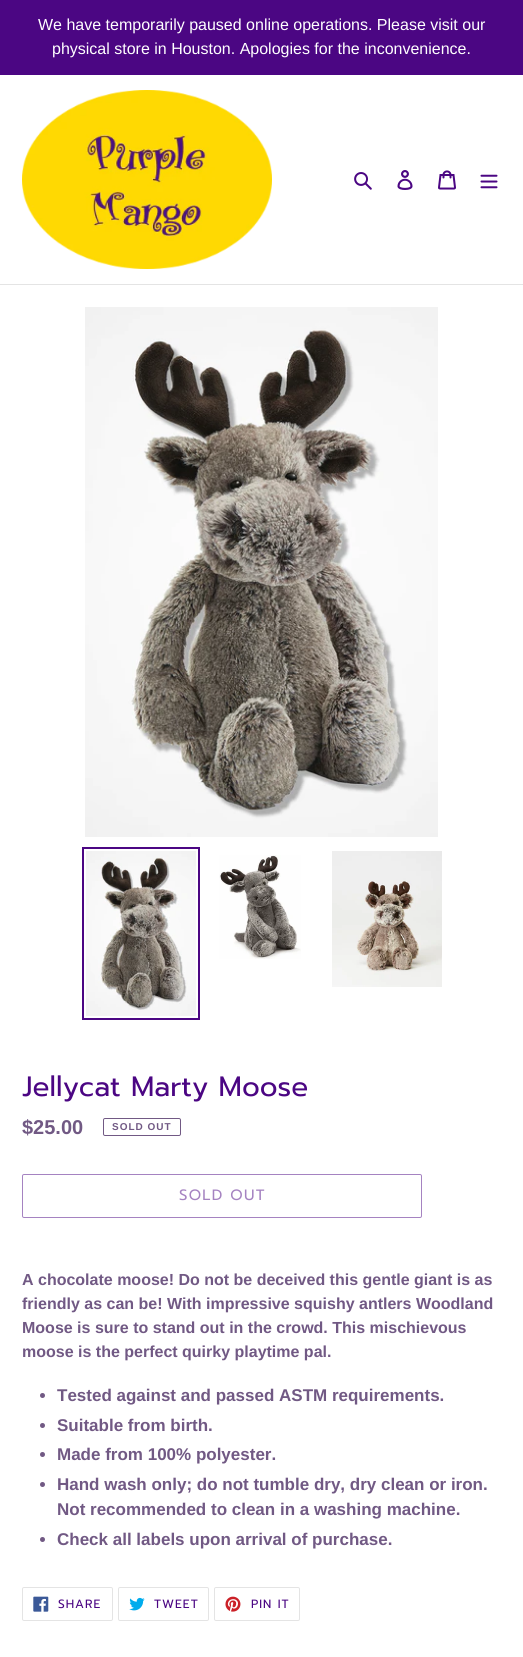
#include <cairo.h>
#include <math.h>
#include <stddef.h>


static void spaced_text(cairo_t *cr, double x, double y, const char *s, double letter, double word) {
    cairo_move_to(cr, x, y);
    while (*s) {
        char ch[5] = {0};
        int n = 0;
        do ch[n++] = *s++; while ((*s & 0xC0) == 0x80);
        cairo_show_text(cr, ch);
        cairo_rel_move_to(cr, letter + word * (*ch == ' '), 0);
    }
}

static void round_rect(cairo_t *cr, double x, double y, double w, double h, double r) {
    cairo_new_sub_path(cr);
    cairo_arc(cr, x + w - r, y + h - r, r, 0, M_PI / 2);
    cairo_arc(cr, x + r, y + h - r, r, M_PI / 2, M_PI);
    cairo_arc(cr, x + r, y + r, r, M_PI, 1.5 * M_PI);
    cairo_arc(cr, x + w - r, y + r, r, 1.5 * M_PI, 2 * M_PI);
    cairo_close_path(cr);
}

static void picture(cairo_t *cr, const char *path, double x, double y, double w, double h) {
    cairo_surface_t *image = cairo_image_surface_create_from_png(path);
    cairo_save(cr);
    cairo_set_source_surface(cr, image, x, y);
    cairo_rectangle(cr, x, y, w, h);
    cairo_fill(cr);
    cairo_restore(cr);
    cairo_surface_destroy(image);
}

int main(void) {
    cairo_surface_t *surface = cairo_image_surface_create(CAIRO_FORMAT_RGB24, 523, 1657);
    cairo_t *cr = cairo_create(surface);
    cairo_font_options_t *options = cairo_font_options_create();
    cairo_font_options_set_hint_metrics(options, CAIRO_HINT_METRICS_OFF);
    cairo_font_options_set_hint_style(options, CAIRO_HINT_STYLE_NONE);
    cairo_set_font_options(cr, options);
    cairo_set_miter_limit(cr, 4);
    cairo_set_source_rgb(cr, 1, 1, 1);
    cairo_paint(cr);
    cairo_set_source_rgb(cr, 0.294, 0.024, 0.514);
    cairo_rectangle(cr, 0, 0, 523, 75);
    cairo_fill(cr);
    cairo_select_font_face(cr, "Liberation Sans", CAIRO_FONT_SLANT_NORMAL, CAIRO_FONT_WEIGHT_NORMAL);
    cairo_set_font_size(cr, 16);
    cairo_set_source_rgb(cr, 1, 1, 1);
    cairo_move_to(cr, 38, 30);
    cairo_show_text(cr, "We have temporarily paused online operations. Please visit our");
    cairo_move_to(cr, 52, 54);
    cairo_show_text(cr, "physical store in Houston. Apologies for the inconvenience.");
    cairo_set_source_rgb(cr, 0.894, 0.894, 0.894);
    cairo_rectangle(cr, 0, 284, 523, 1);
    cairo_fill(cr);
    picture(cr, "img1.png", 22, 90, 250, 179);
    picture(cr, "img2.png", 354, 172, 18, 18);
    picture(cr, "img3.png", 397, 170, 16, 20);
    picture(cr, "img4.png", 438, 170, 18, 20);
    picture(cr, "img5.png", 480, 174, 18, 15);
    picture(cr, "img6.png", 85, 307, 353, 530);
    cairo_rectangle(cr, 83, 848, 116, 171);
    cairo_set_source_rgb(cr, 0.294, 0.024, 0.514);
    cairo_stroke(cr);
    picture(cr, "img7.png", 86, 851, 110, 165);
    picture(cr, "img8.png", 219, 855, 82, 104);
    picture(cr, "img9.png", 332, 851, 110, 136);
    cairo_select_font_face(cr, "Prompt", CAIRO_FONT_SLANT_NORMAL, CAIRO_FONT_WEIGHT_NORMAL);
    cairo_set_font_size(cr, 28);
    cairo_move_to(cr, 22, 1096);
    cairo_show_text(cr, "Jellycat Marty Moose");
    cairo_select_font_face(cr, "Liberation Sans", CAIRO_FONT_SLANT_NORMAL, CAIRO_FONT_WEIGHT_BOLD);
    cairo_set_font_size(cr, 20);
    cairo_set_source_rgb(cr, 0.443, 0.349, 0.518);
    cairo_move_to(cr, 22, 1134);
    cairo_show_text(cr, "$25.00");
    round_rect(cr, 103.5, 1118.5, 77, 17, 1.5);
    cairo_set_line_width(cr, 1);
    cairo_stroke(cr);
    cairo_set_font_size(cr, 10);
    spaced_text(cr, 112, 1130, "SOLD OUT", 1, 0);
    round_rect(cr, 22.5, 1174.5, 399, 43, 1.5);
    cairo_set_source_rgb(cr, 0.647, 0.514, 0.757);
    cairo_stroke(cr);
    cairo_select_font_face(cr, "Prompt", CAIRO_FONT_SLANT_NORMAL, CAIRO_FONT_WEIGHT_NORMAL);
    cairo_set_font_size(cr, 15);
    spaced_text(cr, 179, 1200, "SOLD OUT", 1.25, 0);
    cairo_select_font_face(cr, "Liberation Sans", CAIRO_FONT_SLANT_NORMAL, CAIRO_FONT_WEIGHT_BOLD);
    cairo_set_font_size(cr, 16);
    cairo_set_source_rgb(cr, 0.443, 0.349, 0.518);
    cairo_move_to(cr, 22, 1285);
    cairo_show_text(cr, "A chocolate moose! Do not be deceived this gentle giant is as");
    cairo_move_to(cr, 22, 1309);
    cairo_show_text(cr, "friendly as can be! With impressive squishy antlers Woodland");
    cairo_move_to(cr, 22, 1333);
    cairo_show_text(cr, "Moose is sure to stand out in the crowd. This mischievous");
    cairo_move_to(cr, 22, 1357);
    cairo_show_text(cr, "moose is the perfect quirky playtime pal.");
    cairo_new_path(cr);
    cairo_arc(cr, 42.5, 1395.5, 2.5, 0, 2 * M_PI);
    cairo_fill(cr);
    cairo_set_font_size(cr, 17);
    cairo_move_to(cr, 57, 1401);
    cairo_show_text(cr, "Tested against and passed ASTM requirements.");
    cairo_new_path(cr);
    cairo_arc(cr, 42.5, 1425.5, 2.5, 0, 2 * M_PI);
    cairo_fill(cr);
    cairo_move_to(cr, 57, 1431);
    cairo_show_text(cr, "Suitable from birth.");
    cairo_new_path(cr);
    cairo_arc(cr, 42.5, 1454.5, 2.5, 0, 2 * M_PI);
    cairo_fill(cr);
    cairo_move_to(cr, 57, 1460);
    cairo_show_text(cr, "Made from 100% polyester.");
    cairo_new_path(cr);
    cairo_arc(cr, 42.5, 1484.5, 2.5, 0, 2 * M_PI);
    cairo_fill(cr);
    cairo_move_to(cr, 57, 1490);
    cairo_show_text(cr, "Hand wash only; do not tumble dry, dry clean or iron.");
    cairo_move_to(cr, 57, 1515);
    cairo_show_text(cr, "Not recommended to clean in a washing machine.");
    cairo_new_path(cr);
    cairo_arc(cr, 42.5, 1539.5, 2.5, 0, 2 * M_PI);
    cairo_fill(cr);
    cairo_move_to(cr, 57, 1545);
    cairo_show_text(cr, "Check all labels upon arrival of purchase.");
    round_rect(cr, 22.5, 1587.5, 90, 33, 1.5);
    cairo_set_source_rgb(cr, 0.894, 0.894, 0.894);
    cairo_stroke(cr);
    picture(cr, "img10.png", 33, 1596, 16, 16);
    cairo_select_font_face(cr, "Prompt", CAIRO_FONT_SLANT_NORMAL, CAIRO_FONT_WEIGHT_NORMAL);
    cairo_set_font_size(cr, 12);
    cairo_set_source_rgb(cr, 0.294, 0.024, 0.514);
    spaced_text(cr, 58, 1608, "SHARE", 1, 0);
    round_rect(cr, 118.5, 1587.5, 90, 33, 1.5);
    cairo_set_source_rgb(cr, 0.894, 0.894, 0.894);
    cairo_stroke(cr);
    picture(cr, "img11.png", 129, 1597, 16, 14);
    cairo_set_source_rgb(cr, 0.294, 0.024, 0.514);
    spaced_text(cr, 154, 1608, "TWEET", 1, 0);
    round_rect(cr, 214.5, 1587.5, 85, 33, 1.5);
    cairo_set_source_rgb(cr, 0.894, 0.894, 0.894);
    cairo_stroke(cr);
    picture(cr, "img12.png", 225, 1596, 16, 16);
    cairo_set_source_rgb(cr, 0.294, 0.024, 0.514);
    spaced_text(cr, 251, 1608, "PIN IT", 1, 0);
    cairo_surface_write_to_png(surface, "page.png");
    cairo_font_options_destroy(options);
    cairo_destroy(cr);
    cairo_surface_destroy(surface);
    return 0;
}
